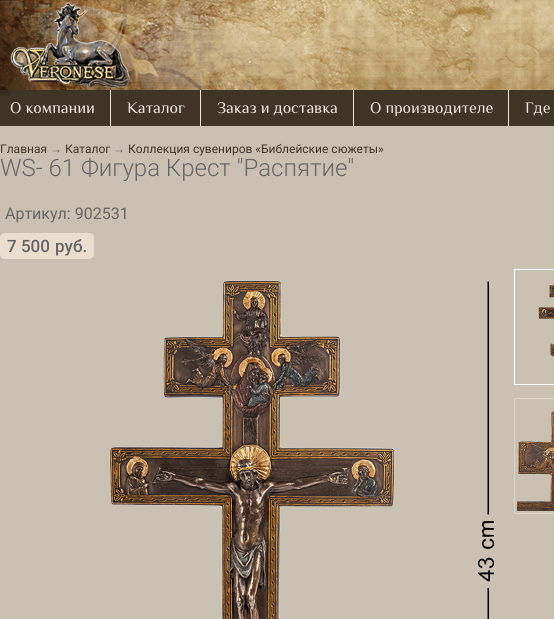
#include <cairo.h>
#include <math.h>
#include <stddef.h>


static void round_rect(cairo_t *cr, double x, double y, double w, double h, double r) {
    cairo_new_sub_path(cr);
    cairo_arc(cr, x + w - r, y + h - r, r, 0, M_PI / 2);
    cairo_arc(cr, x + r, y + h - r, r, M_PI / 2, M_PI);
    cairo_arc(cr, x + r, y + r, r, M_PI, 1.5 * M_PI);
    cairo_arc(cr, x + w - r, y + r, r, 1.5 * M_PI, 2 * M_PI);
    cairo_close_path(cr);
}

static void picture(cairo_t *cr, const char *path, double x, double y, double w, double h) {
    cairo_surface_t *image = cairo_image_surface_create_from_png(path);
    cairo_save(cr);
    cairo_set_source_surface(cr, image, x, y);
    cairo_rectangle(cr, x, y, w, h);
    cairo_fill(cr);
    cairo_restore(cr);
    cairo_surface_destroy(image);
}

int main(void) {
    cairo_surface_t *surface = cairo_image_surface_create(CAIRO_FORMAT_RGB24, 554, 619);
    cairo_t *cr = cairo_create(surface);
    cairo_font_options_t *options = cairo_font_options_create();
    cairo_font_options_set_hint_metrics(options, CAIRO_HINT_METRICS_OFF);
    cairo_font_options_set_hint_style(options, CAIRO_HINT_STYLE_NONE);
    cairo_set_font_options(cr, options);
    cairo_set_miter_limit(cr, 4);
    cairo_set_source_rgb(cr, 0.792, 0.757, 0.698);
    cairo_paint(cr);
    picture(cr, "img1.png", 0, 0, 554, 90);
    picture(cr, "img2.png", 10, 2, 120, 87);
    cairo_set_source_rgb(cr, 0.251, 0.204, 0.149);
    cairo_rectangle(cr, 0, 96, 10, 30);
    cairo_fill(cr);
    picture(cr, "img3.png", 0, 90, 10, 6);
    cairo_rectangle(cr, 10, 90, 544, 36);
    cairo_fill(cr);
    cairo_select_font_face(cr, "Philosopher", CAIRO_FONT_SLANT_NORMAL, CAIRO_FONT_WEIGHT_NORMAL);
    cairo_set_font_size(cr, 16);
    cairo_set_source_rgb(cr, 0.933, 0.906, 0.875);
    cairo_move_to(cr, 10, 113);
    cairo_show_text(cr, "О компании");
    cairo_rectangle(cr, 110, 90, 1, 36);
    cairo_fill(cr);
    cairo_move_to(cr, 127, 113);
    cairo_show_text(cr, "Каталог");
    cairo_rectangle(cr, 200, 90, 1, 36);
    cairo_fill(cr);
    cairo_move_to(cr, 217, 113);
    cairo_show_text(cr, "Заказ и доставка");
    cairo_rectangle(cr, 353, 90, 1, 36);
    cairo_fill(cr);
    cairo_move_to(cr, 370, 113);
    cairo_show_text(cr, "О производителе");
    cairo_rectangle(cr, 508, 90, 1, 36);
    cairo_fill(cr);
    cairo_move_to(cr, 525, 113);
    cairo_show_text(cr, "Где");
    cairo_select_font_face(cr, "Roboto", CAIRO_FONT_SLANT_NORMAL, CAIRO_FONT_WEIGHT_NORMAL);
    cairo_set_font_size(cr, 12);
    cairo_set_source_rgb(cr, 0.251, 0.204, 0.149);
    cairo_move_to(cr, 0, 153);
    cairo_show_text(cr, "Главная");
    cairo_select_font_face(cr, "Liberation Serif", CAIRO_FONT_SLANT_NORMAL, CAIRO_FONT_WEIGHT_NORMAL);
    cairo_set_source_rgb(cr, 0.4, 0.4, 0.4);
    cairo_move_to(cr, 50, 153);
    cairo_show_text(cr, "→");
    cairo_select_font_face(cr, "Roboto", CAIRO_FONT_SLANT_NORMAL, CAIRO_FONT_WEIGHT_NORMAL);
    cairo_set_source_rgb(cr, 0.251, 0.204, 0.149);
    cairo_move_to(cr, 65, 153);
    cairo_show_text(cr, "Каталог");
    cairo_select_font_face(cr, "Liberation Serif", CAIRO_FONT_SLANT_NORMAL, CAIRO_FONT_WEIGHT_NORMAL);
    cairo_set_source_rgb(cr, 0.4, 0.4, 0.4);
    cairo_move_to(cr, 113, 153);
    cairo_show_text(cr, "→");
    cairo_select_font_face(cr, "Roboto", CAIRO_FONT_SLANT_NORMAL, CAIRO_FONT_WEIGHT_NORMAL);
    cairo_set_source_rgb(cr, 0.251, 0.204, 0.149);
    cairo_move_to(cr, 128, 153);
    cairo_show_text(cr, "Коллекция сувениров «Библейские сюжеты»");
    cairo_select_font_face(cr, "Roboto Light", CAIRO_FONT_SLANT_NORMAL, CAIRO_FONT_WEIGHT_NORMAL);
    cairo_set_font_size(cr, 24);
    cairo_set_source_rgb(cr, 0.4, 0.4, 0.4);
    cairo_move_to(cr, 0, 176);
    cairo_show_text(cr, "WS- 61 Фигура Крест \"Распятие\"");
    cairo_select_font_face(cr, "Roboto", CAIRO_FONT_SLANT_NORMAL, CAIRO_FONT_WEIGHT_NORMAL);
    cairo_set_font_size(cr, 16);
    cairo_move_to(cr, 5, 219);
    cairo_show_text(cr, "Артикул: 902531");
    cairo_set_source_rgb(cr, 0.922, 0.871, 0.808);
    round_rect(cr, 0, 233, 94, 26, 5);
    cairo_fill(cr);
    cairo_select_font_face(cr, "Roboto Medium", CAIRO_FONT_SLANT_NORMAL, CAIRO_FONT_WEIGHT_NORMAL);
    cairo_set_font_size(cr, 17);
    cairo_set_source_rgb(cr, 0.4, 0.4, 0.4);
    cairo_move_to(cr, 7, 252);
    cairo_show_text(cr, "7 500");
    cairo_move_to(cr, 55, 252);
    cairo_show_text(cr, "руб.");
    picture(cr, "img4.png", 109, 280, 385, 339);
    cairo_rectangle(cr, 514.5, 269.5, 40, 115);
    cairo_set_source_rgb(cr, 1, 1, 1);
    cairo_set_line_width(cr, 1);
    cairo_stroke(cr);
    picture(cr, "img5.png", 538, 285, 16, 72);
    cairo_rectangle(cr, 514.5, 398.5, 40, 115);
    cairo_set_source_rgb(cr, 0.855, 0.831, 0.788);
    cairo_stroke(cr);
    picture(cr, "img6.png", 517, 411, 37, 100);
    cairo_surface_write_to_png(surface, "page.png");
    cairo_font_options_destroy(options);
    cairo_destroy(cr);
    cairo_surface_destroy(surface);
    return 0;
}
